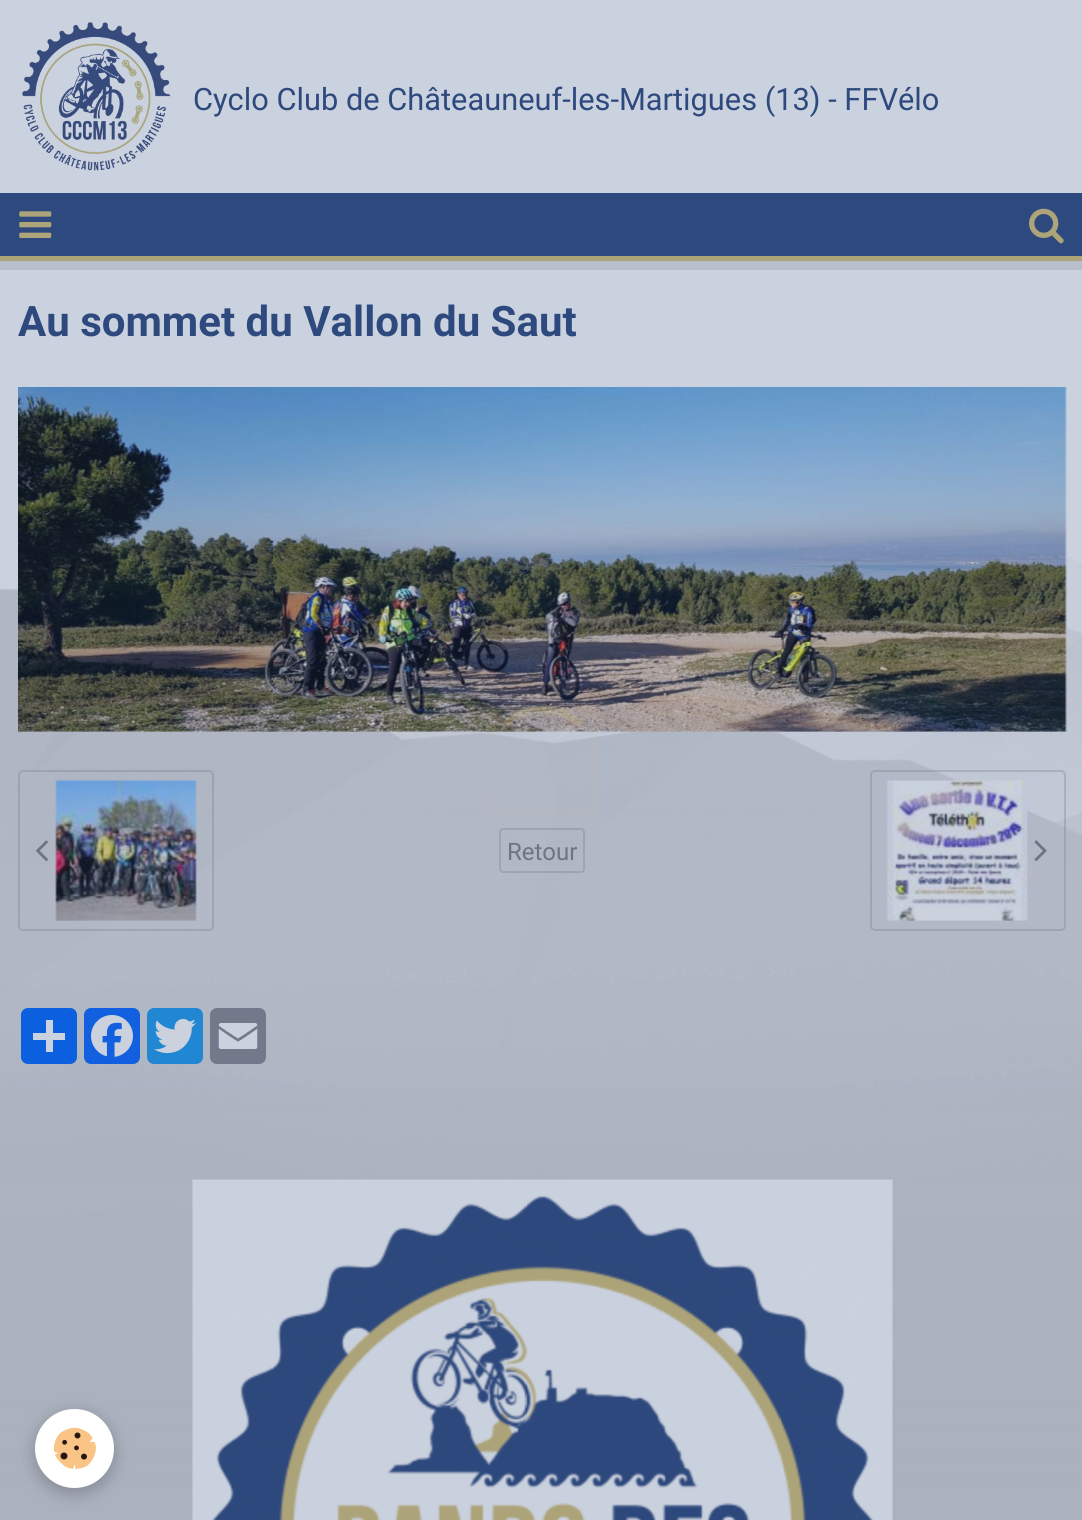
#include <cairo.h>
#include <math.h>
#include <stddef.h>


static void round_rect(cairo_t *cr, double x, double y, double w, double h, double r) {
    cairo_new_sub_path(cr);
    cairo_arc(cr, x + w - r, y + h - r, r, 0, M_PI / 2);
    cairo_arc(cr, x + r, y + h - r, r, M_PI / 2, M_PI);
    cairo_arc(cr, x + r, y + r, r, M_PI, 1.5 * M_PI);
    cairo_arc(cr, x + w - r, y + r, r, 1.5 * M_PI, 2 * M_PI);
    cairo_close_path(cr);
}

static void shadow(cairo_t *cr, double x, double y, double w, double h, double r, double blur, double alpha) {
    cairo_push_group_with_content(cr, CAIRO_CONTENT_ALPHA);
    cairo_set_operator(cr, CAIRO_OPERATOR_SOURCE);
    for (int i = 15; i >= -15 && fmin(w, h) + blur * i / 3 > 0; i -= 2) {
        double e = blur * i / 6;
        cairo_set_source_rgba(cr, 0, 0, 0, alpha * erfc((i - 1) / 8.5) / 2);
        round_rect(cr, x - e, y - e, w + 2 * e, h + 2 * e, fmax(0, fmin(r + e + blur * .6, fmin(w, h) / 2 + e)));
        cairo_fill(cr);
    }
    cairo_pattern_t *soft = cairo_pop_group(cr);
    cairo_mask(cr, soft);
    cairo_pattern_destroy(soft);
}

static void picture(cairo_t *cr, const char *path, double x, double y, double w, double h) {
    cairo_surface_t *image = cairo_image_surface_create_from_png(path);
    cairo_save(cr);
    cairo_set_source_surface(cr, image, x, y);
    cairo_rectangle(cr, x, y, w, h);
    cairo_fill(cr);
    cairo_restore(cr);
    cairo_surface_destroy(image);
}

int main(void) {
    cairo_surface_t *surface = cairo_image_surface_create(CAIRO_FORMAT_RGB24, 1082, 1520);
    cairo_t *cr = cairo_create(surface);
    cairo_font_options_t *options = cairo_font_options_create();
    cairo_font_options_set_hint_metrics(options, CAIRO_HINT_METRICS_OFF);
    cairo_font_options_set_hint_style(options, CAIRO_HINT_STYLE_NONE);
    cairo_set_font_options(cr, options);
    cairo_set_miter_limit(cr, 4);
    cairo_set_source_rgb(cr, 0.796, 0.824, 0.875);
    cairo_paint(cr);
    picture(cr, "img1.png", 0, 486, 1082, 1034);
    cairo_set_source_rgb(cr, 0.722, 0.749, 0.8);
    cairo_rectangle(cr, 0, 261, 1082, 9);
    cairo_fill(cr);
    cairo_set_source_rgb(cr, 0.678, 0.643, 0.475);
    cairo_rectangle(cr, 0, 256, 1082, 5);
    cairo_fill(cr);
    picture(cr, "img2.png", 22, 22, 149, 149);
    cairo_select_font_face(cr, "Roboto", CAIRO_FONT_SLANT_NORMAL, CAIRO_FONT_WEIGHT_NORMAL);
    cairo_set_font_size(cr, 30.8);
    cairo_set_source_rgb(cr, 0.18, 0.286, 0.49);
    cairo_move_to(cr, 193, 110);
    cairo_show_text(cr, "Cyclo Club de Châteauneuf-les-Martigues (13) - FFVélo");
    cairo_rectangle(cr, 0, 193, 1082, 63);
    cairo_fill(cr);
    picture(cr, "img3.png", 19, 211, 33, 27);
    picture(cr, "img4.png", 1029, 208, 35, 36);
    cairo_select_font_face(cr, "Roboto", CAIRO_FONT_SLANT_NORMAL, CAIRO_FONT_WEIGHT_BOLD);
    cairo_set_font_size(cr, 42);
    cairo_move_to(cr, 18, 336);
    cairo_show_text(cr, "Au sommet du Vallon du Saut");
    picture(cr, "img5.png", 18, 387, 1049, 345);
    picture(cr, "img6.png", 36, 840, 12, 22);
    picture(cr, "img7.png", 55, 779, 142, 142);
    round_rect(cr, 19, 771, 194, 159, 4);
    cairo_set_source_rgba(cr, 0.431, 0.459, 0.51, 0.3);
    cairo_stroke(cr);
    round_rect(cr, 500, 829, 84, 43, 3);
    cairo_stroke(cr);
    cairo_select_font_face(cr, "Roboto", CAIRO_FONT_SLANT_NORMAL, CAIRO_FONT_WEIGHT_NORMAL);
    cairo_set_font_size(cr, 24);
    cairo_set_source_rgb(cr, 0.431, 0.459, 0.51);
    cairo_move_to(cr, 507, 860);
    cairo_show_text(cr, "Retour");
    picture(cr, "img8.png", 886, 780, 142, 141);
    picture(cr, "img9.png", 1034, 840, 13, 22);
    round_rect(cr, 871, 771, 194, 159, 4);
    cairo_set_source_rgba(cr, 0.431, 0.459, 0.51, 0.3);
    cairo_stroke(cr);
    cairo_set_source_rgb(cr, 0.047, 0.373, 0.875);
    round_rect(cr, 21, 1008, 56, 56, 7);
    cairo_fill(cr);
    cairo_set_source_rgb(cr, 0.796, 0.824, 0.875);
    cairo_rectangle(cr, 46, 1020, 7, 32);
    cairo_fill(cr);
    cairo_rectangle(cr, 33, 1033, 32, 7);
    cairo_fill(cr);
    cairo_set_source_rgb(cr, 0.071, 0.373, 0.875);
    round_rect(cr, 84, 1008, 56, 56, 7);
    cairo_fill(cr);
    picture(cr, "img10.png", 91, 1015, 42, 42);
    cairo_set_source_rgb(cr, 0.129, 0.529, 0.827);
    round_rect(cr, 147, 1008, 56, 56, 7);
    cairo_fill(cr);
    picture(cr, "img11.png", 154, 1018, 42, 36);
    cairo_set_source_rgb(cr, 0.447, 0.475, 0.545);
    round_rect(cr, 210, 1008, 56, 56, 7);
    cairo_fill(cr);
    picture(cr, "img12.png", 218, 1023, 40, 26);
    picture(cr, "img13.png", 192, 1179, 701, 341);
    cairo_new_path(cr);
    cairo_move_to(cr, 505.5, 724);
    cairo_curve_to(cr, 525.5, 704, 559.5, 704, 579.5, 724);
    cairo_set_source_rgba(cr, 0.843, 0.761, 0.471, 0.25);
    cairo_set_line_width(cr, 7);
    cairo_stroke(cr);
    cairo_rectangle(cr, 490.5, 708.5, 105, 105);
    cairo_set_source_rgba(cr, 0.843, 0.761, 0.471, 0.05);
    cairo_stroke(cr);
    cairo_set_source_rgb(cr, 0, 0, 0);
    shadow(cr, 35, 1414, 79, 79, 39.5, 9, 0.24);
    cairo_set_source_rgb(cr, 1, 1, 1);
    cairo_arc(cr, 74.5, 1448.5, 39.5, 0, 2 * M_PI);
    cairo_fill(cr);
    picture(cr, "img14.png", 53, 1427, 43, 42);
    cairo_surface_write_to_png(surface, "page.png");
    cairo_font_options_destroy(options);
    cairo_destroy(cr);
    cairo_surface_destroy(surface);
    return 0;
}
